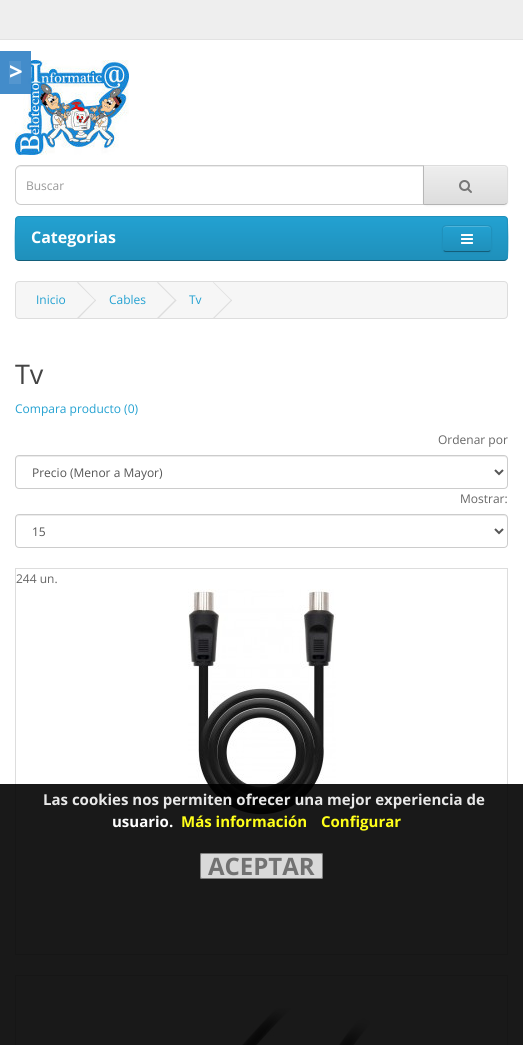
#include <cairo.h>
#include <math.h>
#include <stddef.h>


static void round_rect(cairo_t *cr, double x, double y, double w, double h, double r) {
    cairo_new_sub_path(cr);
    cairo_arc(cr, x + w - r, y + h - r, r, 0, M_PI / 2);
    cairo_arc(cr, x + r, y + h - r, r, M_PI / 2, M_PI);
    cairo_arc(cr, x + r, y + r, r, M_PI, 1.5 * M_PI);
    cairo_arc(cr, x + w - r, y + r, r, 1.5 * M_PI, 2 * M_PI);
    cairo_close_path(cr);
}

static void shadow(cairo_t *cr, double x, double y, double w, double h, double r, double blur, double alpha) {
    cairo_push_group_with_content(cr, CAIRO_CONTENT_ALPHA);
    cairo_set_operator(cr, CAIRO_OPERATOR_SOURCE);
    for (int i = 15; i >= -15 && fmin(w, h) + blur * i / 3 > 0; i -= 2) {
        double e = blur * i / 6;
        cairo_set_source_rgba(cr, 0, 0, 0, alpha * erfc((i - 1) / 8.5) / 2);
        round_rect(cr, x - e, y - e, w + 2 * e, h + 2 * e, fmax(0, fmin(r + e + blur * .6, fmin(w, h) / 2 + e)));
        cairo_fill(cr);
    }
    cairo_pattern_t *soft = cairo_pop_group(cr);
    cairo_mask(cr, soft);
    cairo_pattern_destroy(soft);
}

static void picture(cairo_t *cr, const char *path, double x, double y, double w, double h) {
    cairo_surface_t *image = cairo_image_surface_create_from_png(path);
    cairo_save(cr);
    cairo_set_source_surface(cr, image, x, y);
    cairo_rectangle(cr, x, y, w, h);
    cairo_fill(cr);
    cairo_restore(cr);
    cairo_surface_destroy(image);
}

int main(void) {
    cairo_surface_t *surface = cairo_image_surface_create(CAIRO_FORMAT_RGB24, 523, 1045);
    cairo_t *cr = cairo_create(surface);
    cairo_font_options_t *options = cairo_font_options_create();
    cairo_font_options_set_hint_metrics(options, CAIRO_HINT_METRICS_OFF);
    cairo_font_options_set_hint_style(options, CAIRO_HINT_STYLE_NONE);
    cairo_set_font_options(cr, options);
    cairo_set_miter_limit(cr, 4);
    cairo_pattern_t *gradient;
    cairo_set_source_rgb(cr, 1, 1, 1);
    cairo_paint(cr);
    cairo_set_source_rgb(cr, 0.933, 0.933, 0.933);
    cairo_rectangle(cr, 0, 0, 523, 39);
    cairo_fill(cr);
    cairo_set_source_rgb(cr, 0.886, 0.886, 0.886);
    cairo_rectangle(cr, 0, 39, 523, 1);
    cairo_fill(cr);
    picture(cr, "img1.png", 15, 60, 114, 95);
    cairo_set_source_rgba(cr, 0.259, 0.545, 0.792, 0.9);
    cairo_rectangle(cr, 0, 51, 31, 43);
    cairo_fill(cr);
    cairo_rectangle(cr, 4, 56, 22, 33);
    cairo_set_line_width(cr, 10);
    cairo_stroke(cr);
    cairo_select_font_face(cr, "Open Sans", CAIRO_FONT_SLANT_NORMAL, CAIRO_FONT_WEIGHT_BOLD);
    cairo_set_font_size(cr, 24);
    cairo_set_source_rgb(cr, 1, 1, 1);
    cairo_move_to(cr, 9, 80);
    cairo_show_text(cr, ">");
    cairo_set_source_rgb(cr, 0.925, 0.925, 0.925);
    cairo_new_path(cr);
    cairo_move_to(cr, 21, 167);
    cairo_line_to(cr, 423, 167);
    cairo_line_to(cr, 423, 166);
    cairo_line_to(cr, 21, 166);
    cairo_curve_to(cr, 18, 166, 16, 169, 16, 172);
    cairo_curve_to(cr, 16, 169, 18, 167, 21, 167);
    cairo_close_path(cr);
    cairo_fill(cr);
    cairo_new_path(cr);
    cairo_move_to(cr, 21, 165.5);
    cairo_line_to(cr, 423.5, 165.5);
    cairo_line_to(cr, 423.5, 204.5);
    cairo_line_to(cr, 21, 204.5);
    cairo_curve_to(cr, 18, 204.5, 15.5, 202, 15.5, 199);
    cairo_line_to(cr, 15.5, 171);
    cairo_curve_to(cr, 15.5, 168, 18, 165.5, 21, 165.5);
    cairo_close_path(cr);
    cairo_set_source_rgb(cr, 0.8, 0.8, 0.8);
    cairo_set_line_width(cr, 1);
    cairo_stroke(cr);
    cairo_select_font_face(cr, "Open Sans", CAIRO_FONT_SLANT_NORMAL, CAIRO_FONT_WEIGHT_NORMAL);
    cairo_set_font_size(cr, 12);
    cairo_set_source_rgb(cr, 0.6, 0.6, 0.6);
    cairo_move_to(cr, 26, 190);
    cairo_show_text(cr, "Buscar");
    cairo_set_source_rgb(cr, 0, 0, 0);
    shadow(cr, 423, 166, 85, 40, 4, 1, 0.05);
    cairo_set_source_rgb(cr, 0.906, 0.906, 0.906);
    cairo_new_path(cr);
    cairo_move_to(cr, 423, 165);
    cairo_line_to(cr, 504, 165);
    cairo_curve_to(cr, 506, 165, 508, 167, 508, 169);
    cairo_line_to(cr, 508, 201);
    cairo_curve_to(cr, 508, 203, 506, 205, 504, 205);
    cairo_line_to(cr, 423, 205);
    cairo_close_path(cr);
    cairo_fill(cr);
    cairo_save(cr);
    cairo_new_path(cr);
    cairo_move_to(cr, 423, 165);
    cairo_line_to(cr, 504, 165);
    cairo_curve_to(cr, 506, 165, 508, 167, 508, 169);
    cairo_line_to(cr, 508, 201);
    cairo_curve_to(cr, 508, 203, 506, 205, 504, 205);
    cairo_line_to(cr, 423, 205);
    cairo_close_path(cr);
    cairo_clip(cr);
    gradient = cairo_pattern_create_linear(466, 166, 466, 204);
    cairo_pattern_add_color_stop_rgba(gradient, 0, 0.933, 0.933, 0.933, 1);
    cairo_pattern_add_color_stop_rgba(gradient, 1, 0.867, 0.867, 0.867, 1);
    cairo_set_source(cr, gradient);
    cairo_pattern_destroy(gradient);
    cairo_rectangle(cr, 424, 166, 84, 38);
    cairo_fill(cr);
    cairo_restore(cr);
    cairo_set_source_rgb(cr, 0.945, 0.945, 0.945);
    cairo_new_path(cr);
    cairo_move_to(cr, 424, 167);
    cairo_line_to(cr, 504, 167);
    cairo_curve_to(cr, 506, 167, 507, 168, 507, 170);
    cairo_line_to(cr, 507, 169);
    cairo_curve_to(cr, 507, 167, 506, 166, 504, 166);
    cairo_line_to(cr, 424, 166);
    cairo_close_path(cr);
    cairo_fill(cr);
    cairo_set_source_rgb(cr, 0.867, 0.867, 0.867);
    cairo_new_path(cr);
    cairo_move_to(cr, 423, 165);
    cairo_line_to(cr, 424, 166);
    cairo_line_to(cr, 505, 166);
    cairo_line_to(cr, 506, 167);
    cairo_line_to(cr, 507, 166);
    cairo_line_to(cr, 504, 165);
    cairo_close_path(cr);
    cairo_fill(cr);
    cairo_new_path(cr);
    cairo_move_to(cr, 508, 201);
    cairo_line_to(cr, 508, 169);
    cairo_curve_to(cr, 508, 168, 507.5, 167, 507, 166);
    cairo_line_to(cr, 506, 167);
    cairo_curve_to(cr, 507, 167, 507, 168, 507, 169);
    cairo_line_to(cr, 507, 201);
    cairo_curve_to(cr, 507, 202, 507, 203, 506, 203);
    cairo_line_to(cr, 507, 204);
    cairo_curve_to(cr, 507.5, 203, 508, 202, 508, 201);
    cairo_close_path(cr);
    cairo_fill(cr);
    cairo_set_source_rgb(cr, 0.702, 0.702, 0.702);
    cairo_new_path(cr);
    cairo_move_to(cr, 504, 205);
    cairo_line_to(cr, 507, 204);
    cairo_line_to(cr, 506, 203);
    cairo_line_to(cr, 505, 204);
    cairo_line_to(cr, 424, 204);
    cairo_line_to(cr, 423, 205);
    cairo_close_path(cr);
    cairo_fill(cr);
    cairo_set_source_rgb(cr, 0.718, 0.718, 0.718);
    cairo_new_path(cr);
    cairo_move_to(cr, 423, 165);
    cairo_line_to(cr, 423, 205);
    cairo_line_to(cr, 424, 204);
    cairo_line_to(cr, 424, 166);
    cairo_close_path(cr);
    cairo_fill(cr);
    picture(cr, "img2.png", 459, 180, 13, 13);
    cairo_save(cr);
    round_rect(cr, 15, 216, 493, 45, 4);
    cairo_clip(cr);
    gradient = cairo_pattern_create_linear(262, 217, 262, 260);
    cairo_pattern_add_color_stop_rgba(gradient, 0, 0.137, 0.631, 0.82, 1);
    cairo_pattern_add_color_stop_rgba(gradient, 1, 0.122, 0.565, 0.733, 1);
    cairo_set_source(cr, gradient);
    cairo_pattern_destroy(gradient);
    cairo_rectangle(cr, 15, 217, 493, 43);
    cairo_fill(cr);
    cairo_restore(cr);
    cairo_new_path(cr);
    cairo_move_to(cr, 506.5, 259.5);
    cairo_curve_to(cr, 506, 260, 505, 260.5, 504, 260.5);
    cairo_line_to(cr, 19, 260.5);
    cairo_curve_to(cr, 18, 260.5, 17, 260, 16.5, 259.5);
    cairo_set_source_rgb(cr, 0.078, 0.369, 0.478);
    cairo_stroke(cr);
    cairo_new_path(cr);
    cairo_move_to(cr, 16.5, 259.5);
    cairo_line_to(cr, 15.5, 257.5);
    cairo_curve_to(cr, 15, 253.5, 15, 220, 16, 218.5);
    cairo_curve_to(cr, 16.5, 217, 17.5, 216.5, 19, 216.5);
    cairo_line_to(cr, 504, 216.5);
    cairo_curve_to(cr, 505.5, 216.5, 506.5, 217, 507, 218.5);
    cairo_curve_to(cr, 508, 220, 508, 253.5, 507.5, 257.5);
    cairo_line_to(cr, 506.5, 259.5);
    cairo_set_source_rgb(cr, 0.122, 0.565, 0.733);
    cairo_stroke(cr);
    cairo_select_font_face(cr, "Open Sans", CAIRO_FONT_SLANT_NORMAL, CAIRO_FONT_WEIGHT_BOLD);
    cairo_set_font_size(cr, 16);
    cairo_set_source_rgb(cr, 1, 1, 1);
    cairo_move_to(cr, 31, 243);
    cairo_show_text(cr, "Categorias");
    cairo_set_source_rgb(cr, 0, 0, 0);
    shadow(cr, 442, 226, 50, 27, 4, 1, 0.05);
    cairo_set_source_rgb(cr, 0.133, 0.604, 0.784);
    round_rect(cr, 442, 225, 50, 27, 4);
    cairo_fill(cr);
    cairo_save(cr);
    round_rect(cr, 442, 225, 50, 27, 4);
    cairo_clip(cr);
    gradient = cairo_pattern_create_linear(467, 226, 467, 251);
    cairo_pattern_add_color_stop_rgba(gradient, 0, 0.137, 0.631, 0.82, 1);
    cairo_pattern_add_color_stop_rgba(gradient, 1, 0.122, 0.565, 0.733, 1);
    cairo_set_source(cr, gradient);
    cairo_pattern_destroy(gradient);
    cairo_rectangle(cr, 442, 226, 50, 25);
    cairo_fill(cr);
    cairo_restore(cr);
    cairo_set_source_rgb(cr, 0.31, 0.706, 0.855);
    cairo_new_path(cr);
    cairo_move_to(cr, 446, 227);
    cairo_line_to(cr, 488, 227);
    cairo_curve_to(cr, 490, 227, 491, 228, 491, 230);
    cairo_curve_to(cr, 491, 224, 485, 226, 481, 226);
    cairo_line_to(cr, 453, 226);
    cairo_curve_to(cr, 449, 226, 443, 224, 443, 230);
    cairo_curve_to(cr, 443, 228, 444, 227, 446, 227);
    cairo_close_path(cr);
    cairo_fill(cr);
    cairo_new_path(cr);
    cairo_move_to(cr, 490.5, 250.5);
    cairo_curve_to(cr, 490, 251, 489, 251.5, 488, 251.5);
    cairo_line_to(cr, 446, 251.5);
    cairo_curve_to(cr, 445, 251.5, 444, 251, 443.5, 250.5);
    cairo_set_source_rgb(cr, 0.078, 0.369, 0.478);
    cairo_stroke(cr);
    cairo_new_path(cr);
    cairo_move_to(cr, 443.5, 250.5);
    cairo_curve_to(cr, 441.5, 248.5, 442.5, 241, 442.5, 238.5);
    cairo_curve_to(cr, 442.5, 225.5, 440.5, 225.5, 453, 225.5);
    cairo_line_to(cr, 481, 225.5);
    cairo_curve_to(cr, 493.5, 225.5, 491.5, 225.5, 491.5, 238.5);
    cairo_curve_to(cr, 491.5, 241, 492.5, 248.5, 490.5, 250.5);
    cairo_set_source_rgb(cr, 0.122, 0.565, 0.733);
    cairo_stroke(cr);
    picture(cr, "img3.png", 461, 234, 12, 10);
    cairo_set_source_rgb(cr, 0.961, 0.961, 0.961);
    round_rect(cr, 15.5, 281.5, 492, 37, 3.5);
    cairo_fill_preserve(cr);
    cairo_set_source_rgb(cr, 0.867, 0.867, 0.867);
    cairo_stroke(cr);
    cairo_select_font_face(cr, "Open Sans", CAIRO_FONT_SLANT_NORMAL, CAIRO_FONT_WEIGHT_NORMAL);
    cairo_set_font_size(cr, 12);
    cairo_set_source_rgb(cr, 0.137, 0.631, 0.82);
    cairo_move_to(cr, 36, 304);
    cairo_show_text(cr, "Inicio");
    cairo_set_source_rgb(cr, 0.867, 0.867, 0.867);
    cairo_new_path(cr);
    cairo_move_to(cr, 77, 282.5);
    cairo_line_to(cr, 78, 282);
    cairo_line_to(cr, 96, 300.5);
    cairo_line_to(cr, 95.5, 301);
    cairo_close_path(cr);
    cairo_fill(cr);
    cairo_new_path(cr);
    cairo_move_to(cr, 77, 318);
    cairo_line_to(cr, 95.5, 299.5);
    cairo_line_to(cr, 96, 300.5);
    cairo_line_to(cr, 78, 319);
    cairo_close_path(cr);
    cairo_fill(cr);
    cairo_set_source_rgb(cr, 0.137, 0.631, 0.82);
    cairo_move_to(cr, 109, 304);
    cairo_show_text(cr, "Cables");
    cairo_set_source_rgb(cr, 0.867, 0.867, 0.867);
    cairo_new_path(cr);
    cairo_move_to(cr, 157, 282.5);
    cairo_line_to(cr, 158, 282);
    cairo_line_to(cr, 176.5, 300.5);
    cairo_line_to(cr, 175.5, 301);
    cairo_close_path(cr);
    cairo_fill(cr);
    cairo_new_path(cr);
    cairo_move_to(cr, 157, 318);
    cairo_line_to(cr, 175.5, 299.5);
    cairo_line_to(cr, 176.5, 300.5);
    cairo_line_to(cr, 158, 319);
    cairo_close_path(cr);
    cairo_fill(cr);
    cairo_set_source_rgb(cr, 0.137, 0.631, 0.82);
    cairo_move_to(cr, 189, 304);
    cairo_show_text(cr, "Tv");
    cairo_set_source_rgb(cr, 0.867, 0.867, 0.867);
    cairo_new_path(cr);
    cairo_move_to(cr, 213, 282.5);
    cairo_line_to(cr, 213.5, 282);
    cairo_line_to(cr, 232, 300.5);
    cairo_line_to(cr, 231.5, 301);
    cairo_close_path(cr);
    cairo_fill(cr);
    cairo_new_path(cr);
    cairo_move_to(cr, 213, 318);
    cairo_line_to(cr, 231.5, 299.5);
    cairo_line_to(cr, 232, 300.5);
    cairo_line_to(cr, 213.5, 319);
    cairo_close_path(cr);
    cairo_fill(cr);
    cairo_set_font_size(cr, 27);
    cairo_set_source_rgb(cr, 0.267, 0.267, 0.267);
    cairo_move_to(cr, 15, 384);
    cairo_show_text(cr, "Tv");
    cairo_set_font_size(cr, 12);
    cairo_set_source_rgb(cr, 0.137, 0.631, 0.82);
    cairo_move_to(cr, 15, 413);
    cairo_show_text(cr, "Compara producto (0)");
    cairo_set_source_rgb(cr, 0.4, 0.4, 0.4);
    cairo_move_to(cr, 438, 444);
    cairo_show_text(cr, "Ordenar por");
    cairo_set_source_rgb(cr, 0.925, 0.925, 0.925);
    cairo_new_path(cr);
    cairo_move_to(cr, 19, 457);
    cairo_line_to(cr, 504, 457);
    cairo_curve_to(cr, 506, 457, 507, 458, 507, 460);
    cairo_line_to(cr, 507, 459);
    cairo_curve_to(cr, 507, 457, 506, 456, 504, 456);
    cairo_line_to(cr, 19, 456);
    cairo_curve_to(cr, 17, 456, 16, 457, 16, 459);
    cairo_line_to(cr, 16, 460);
    cairo_curve_to(cr, 16, 458, 17, 457, 19, 457);
    cairo_close_path(cr);
    cairo_fill(cr);
    round_rect(cr, 15.5, 455.5, 492, 33, 3.5);
    cairo_set_source_rgb(cr, 0.8, 0.8, 0.8);
    cairo_stroke(cr);
    cairo_new_path(cr);
    cairo_move_to(cr, 495, 470);
    cairo_line_to(cr, 499, 474);
    cairo_line_to(cr, 503, 470);
    cairo_set_source_rgb(cr, 0.333, 0.333, 0.333);
    cairo_set_line_width(cr, 2);
    cairo_stroke(cr);
    cairo_move_to(cr, 32, 477);
    cairo_show_text(cr, "Precio (Menor a Mayor)");
    cairo_set_source_rgb(cr, 0.4, 0.4, 0.4);
    cairo_move_to(cr, 460, 503);
    cairo_show_text(cr, "Mostrar:");
    cairo_set_source_rgb(cr, 0.925, 0.925, 0.925);
    cairo_new_path(cr);
    cairo_move_to(cr, 19, 516);
    cairo_line_to(cr, 504, 516);
    cairo_curve_to(cr, 506, 516, 507, 517, 507, 519);
    cairo_line_to(cr, 507, 518);
    cairo_curve_to(cr, 507, 516, 506, 515, 504, 515);
    cairo_line_to(cr, 19, 515);
    cairo_curve_to(cr, 17, 515, 16, 516, 16, 518);
    cairo_line_to(cr, 16, 519);
    cairo_curve_to(cr, 16, 517, 17, 516, 19, 516);
    cairo_close_path(cr);
    cairo_fill(cr);
    round_rect(cr, 15.5, 514.5, 492, 33, 3.5);
    cairo_set_source_rgb(cr, 0.8, 0.8, 0.8);
    cairo_set_line_width(cr, 1);
    cairo_stroke(cr);
    cairo_new_path(cr);
    cairo_move_to(cr, 495, 529);
    cairo_line_to(cr, 499, 533);
    cairo_line_to(cr, 503, 529);
    cairo_set_source_rgb(cr, 0.333, 0.333, 0.333);
    cairo_set_line_width(cr, 2);
    cairo_stroke(cr);
    cairo_move_to(cr, 32, 536);
    cairo_show_text(cr, "15");
    cairo_rectangle(cr, 15.5, 568.5, 492, 386);
    cairo_set_source_rgb(cr, 0.867, 0.867, 0.867);
    cairo_set_line_width(cr, 1);
    cairo_stroke(cr);
    cairo_set_source_rgb(cr, 0.4, 0.4, 0.4);
    cairo_move_to(cr, 16, 583);
    cairo_show_text(cr, "244 un.");
    picture(cr, "img4.png", 188, 589, 148, 228);
    cairo_rectangle(cr, 15.5, 975.5, 492, 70);
    cairo_set_source_rgb(cr, 0.867, 0.867, 0.867);
    cairo_stroke(cr);
    picture(cr, "img5.png", 237, 1008, 133, 37);
    cairo_set_source_rgba(cr, 0, 0, 0, 0.9);
    cairo_rectangle(cr, 0, 784, 523, 261);
    cairo_fill(cr);
    cairo_select_font_face(cr, "Open Sans", CAIRO_FONT_SLANT_NORMAL, CAIRO_FONT_WEIGHT_BOLD);
    cairo_set_font_size(cr, 15);
    cairo_set_source_rgb(cr, 0.91, 0.91, 0.91);
    cairo_move_to(cr, 43, 805);
    cairo_show_text(cr, "Las cookies nos permiten ofrecer una mejor experiencia de");
    cairo_set_source_rgb(cr, 1, 1, 1);
    cairo_move_to(cr, 112, 827);
    cairo_show_text(cr, "usuario.");
    cairo_set_source_rgb(cr, 1, 1, 0.098);
    cairo_move_to(cr, 181, 827);
    cairo_show_text(cr, "Más información");
    cairo_move_to(cr, 321, 827);
    cairo_show_text(cr, "Configurar");
    cairo_set_source_rgba(cr, 0.937, 0.937, 0.937, 0.9);
    round_rect(cr, 200, 853, 123, 26, 2);
    cairo_fill(cr);
    round_rect(cr, 200.5, 853.5, 122, 25, 1.5);
    cairo_set_source_rgba(cr, 0.463, 0.463, 0.463, 0.9);
    cairo_stroke(cr);
    cairo_set_font_size(cr, 24);
    cairo_set_source_rgb(cr, 0.447, 0.447, 0.447);
    cairo_move_to(cr, 208, 875);
    cairo_show_text(cr, "ACEPTAR");
    cairo_surface_write_to_png(surface, "page.png");
    cairo_font_options_destroy(options);
    cairo_destroy(cr);
    cairo_surface_destroy(surface);
    return 0;
}
